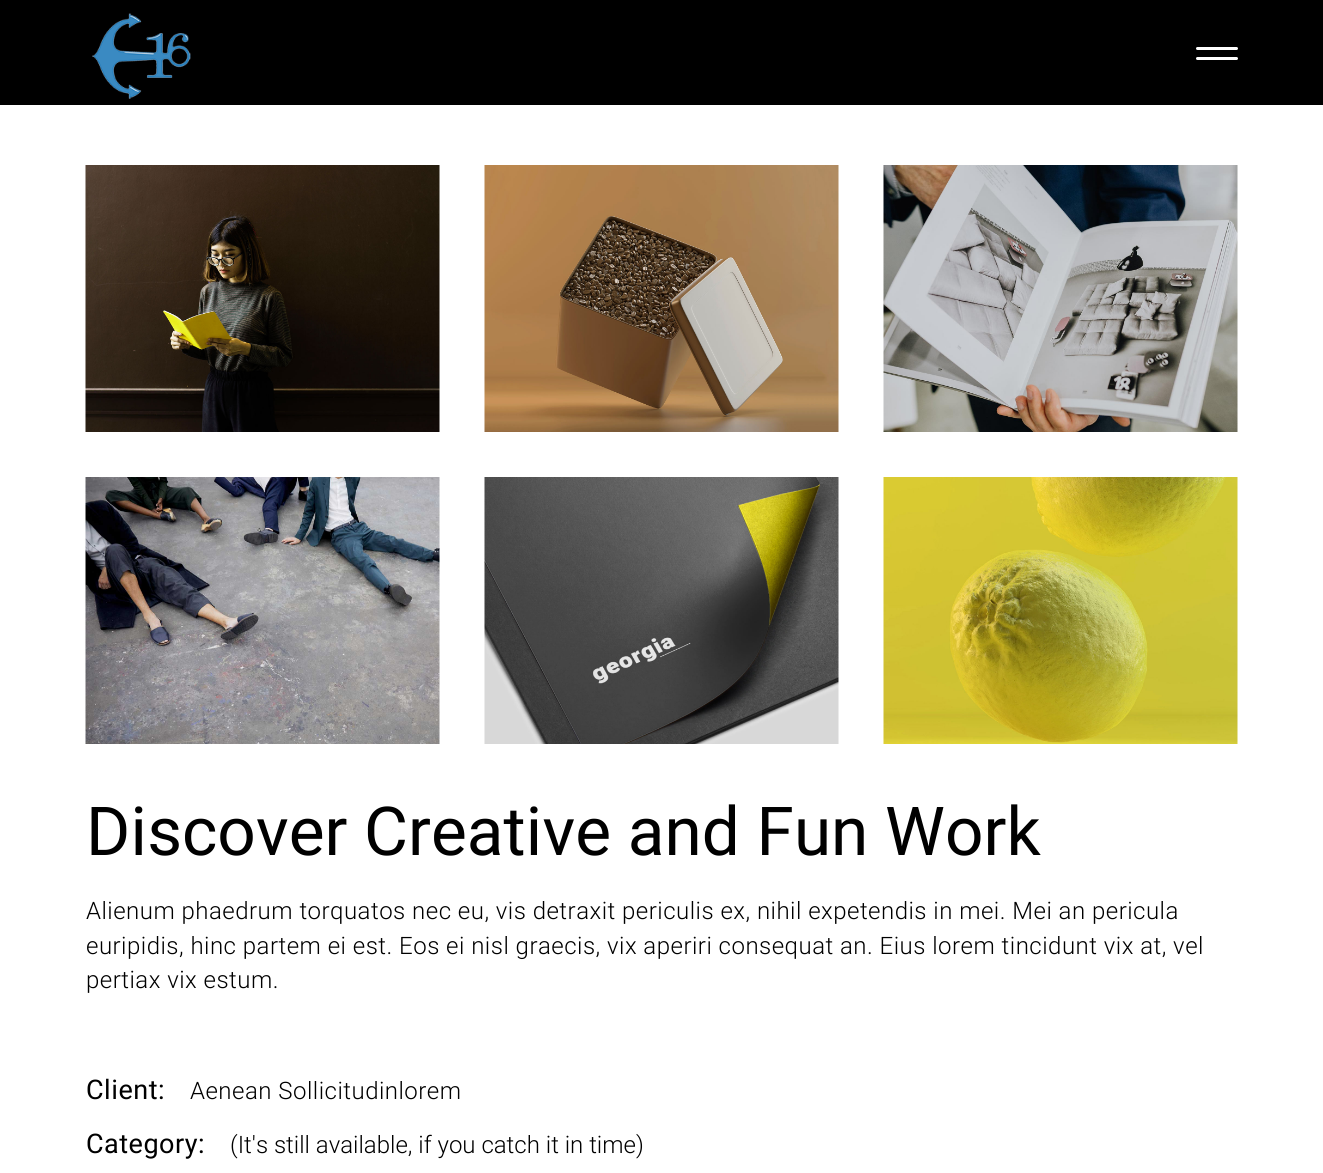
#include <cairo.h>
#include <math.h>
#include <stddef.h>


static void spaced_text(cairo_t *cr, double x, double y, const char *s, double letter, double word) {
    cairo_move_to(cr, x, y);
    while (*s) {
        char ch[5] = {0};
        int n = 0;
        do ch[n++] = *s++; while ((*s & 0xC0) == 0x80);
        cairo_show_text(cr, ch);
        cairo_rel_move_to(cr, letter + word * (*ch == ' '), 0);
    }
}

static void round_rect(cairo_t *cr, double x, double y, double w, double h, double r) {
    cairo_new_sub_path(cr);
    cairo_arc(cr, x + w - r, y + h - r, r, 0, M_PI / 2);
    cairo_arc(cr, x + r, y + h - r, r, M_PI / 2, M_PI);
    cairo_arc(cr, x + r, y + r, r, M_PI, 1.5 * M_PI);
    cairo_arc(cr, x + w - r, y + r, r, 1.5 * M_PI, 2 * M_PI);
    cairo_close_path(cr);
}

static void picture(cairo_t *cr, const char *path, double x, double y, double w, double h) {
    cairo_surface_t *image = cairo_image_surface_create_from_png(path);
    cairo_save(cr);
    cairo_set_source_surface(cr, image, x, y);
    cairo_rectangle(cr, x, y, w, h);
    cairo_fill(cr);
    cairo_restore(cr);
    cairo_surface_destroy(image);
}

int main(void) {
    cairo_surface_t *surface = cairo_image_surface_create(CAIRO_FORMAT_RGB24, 1323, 1173);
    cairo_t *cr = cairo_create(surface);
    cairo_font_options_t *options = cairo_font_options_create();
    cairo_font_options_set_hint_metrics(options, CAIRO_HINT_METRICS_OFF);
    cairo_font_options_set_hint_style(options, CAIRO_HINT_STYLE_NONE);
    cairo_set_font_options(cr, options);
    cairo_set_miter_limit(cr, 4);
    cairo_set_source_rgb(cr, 1, 1, 1);
    cairo_paint(cr);
    cairo_set_source_rgb(cr, 0, 0, 0);
    cairo_rectangle(cr, 0, 0, 1323, 105);
    cairo_fill(cr);
    picture(cr, "img1.png", 92, 13, 99, 86);
    cairo_set_source_rgb(cr, 1, 1, 1);
    round_rect(cr, 1196, 47, 42, 3, 1.5);
    cairo_fill(cr);
    round_rect(cr, 1196, 57, 42, 3, 1.5);
    cairo_fill(cr);
    picture(cr, "img2.png", 85, 165, 355, 267);
    picture(cr, "img3.png", 484, 165, 355, 267);
    picture(cr, "img4.png", 883, 165, 355, 267);
    picture(cr, "img5.png", 85, 477, 355, 267);
    picture(cr, "img6.png", 484, 477, 355, 267);
    picture(cr, "img7.png", 883, 477, 355, 267);
    cairo_select_font_face(cr, "Heebo", CAIRO_FONT_SLANT_NORMAL, CAIRO_FONT_WEIGHT_NORMAL);
    cairo_set_font_size(cr, 67.5);
    cairo_set_source_rgb(cr, 0, 0, 0);
    cairo_move_to(cr, 86, 855);
    cairo_show_text(cr, "Discover Creative and Fun Work");
    cairo_select_font_face(cr, "Roboto Light", CAIRO_FONT_SLANT_NORMAL, CAIRO_FONT_WEIGHT_NORMAL);
    cairo_set_font_size(cr, 24);
    spaced_text(cr, 86, 919, "Alienum phaedrum torquatos nec eu, vis detraxit periculis ex, nihil expetendis in mei. Mei an pericula", 0.48, 0);
    spaced_text(cr, 86, 954, "euripidis, hinc partem ei est. Eos ei nisl graecis, vix aperiri consequat an. Eius lorem tincidunt vix at, vel", 0.48, 0);
    spaced_text(cr, 86, 988, "pertiax vix estum.", 0.48, 0);
    cairo_select_font_face(cr, "Heebo", CAIRO_FONT_SLANT_NORMAL, CAIRO_FONT_WEIGHT_NORMAL);
    cairo_set_font_size(cr, 27);
    spaced_text(cr, 86, 1099, "Client:", 0.5, 0);
    cairo_select_font_face(cr, "Roboto Light", CAIRO_FONT_SLANT_NORMAL, CAIRO_FONT_WEIGHT_NORMAL);
    cairo_set_font_size(cr, 24);
    spaced_text(cr, 190, 1099, "Aenean Sollicitudinlorem", 0.48, 0);
    cairo_select_font_face(cr, "Heebo", CAIRO_FONT_SLANT_NORMAL, CAIRO_FONT_WEIGHT_NORMAL);
    cairo_set_font_size(cr, 27);
    spaced_text(cr, 86, 1153, "Category:", 0.5, 0);
    cairo_select_font_face(cr, "Roboto Light", CAIRO_FONT_SLANT_NORMAL, CAIRO_FONT_WEIGHT_NORMAL);
    cairo_set_font_size(cr, 24);
    cairo_move_to(cr, 230, 1153);
    cairo_show_text(cr, "(It's still available, if you catch it in time)");
    cairo_surface_write_to_png(surface, "page.png");
    cairo_font_options_destroy(options);
    cairo_destroy(cr);
    cairo_surface_destroy(surface);
    return 0;
}
